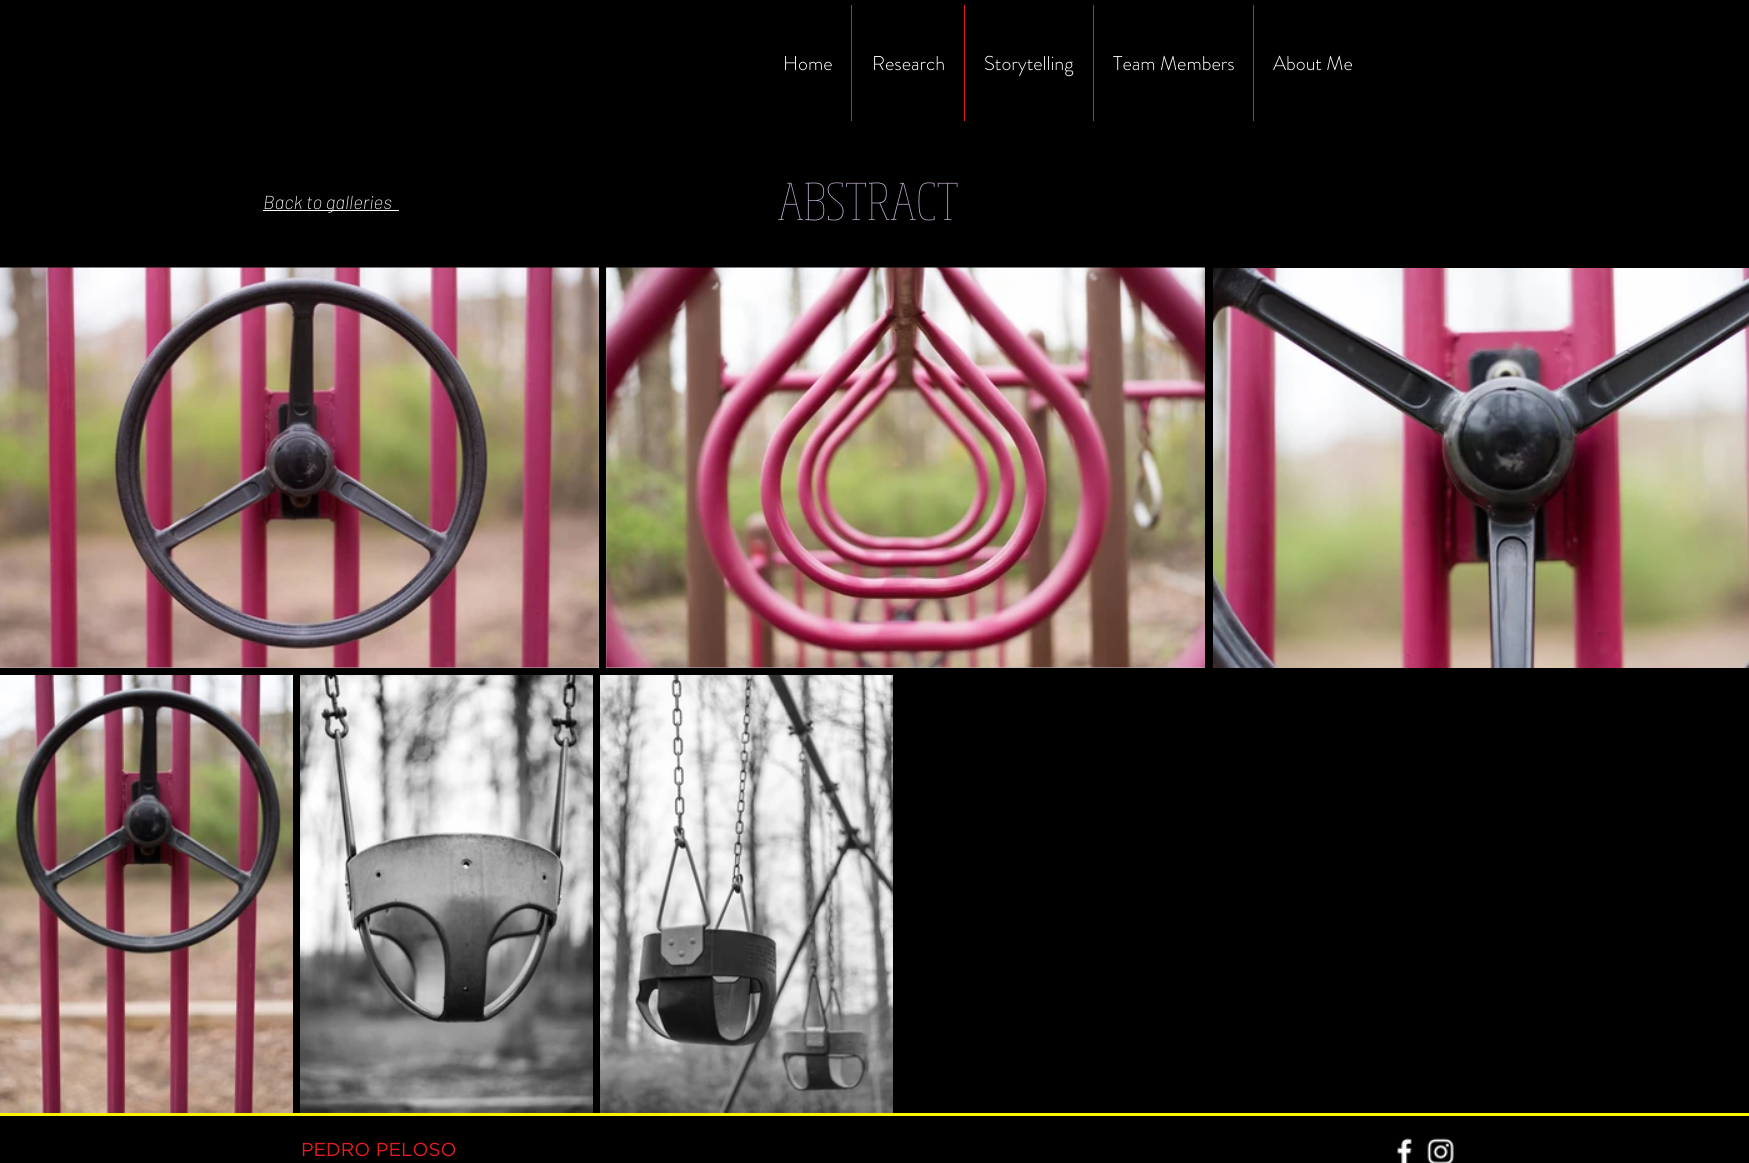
#include <cairo.h>
#include <math.h>
#include <stddef.h>


static void picture(cairo_t *cr, const char *path, double x, double y, double w, double h) {
    cairo_surface_t *image = cairo_image_surface_create_from_png(path);
    cairo_save(cr);
    cairo_set_source_surface(cr, image, x, y);
    cairo_rectangle(cr, x, y, w, h);
    cairo_fill(cr);
    cairo_restore(cr);
    cairo_surface_destroy(image);
}

int main(void) {
    cairo_surface_t *surface = cairo_image_surface_create(CAIRO_FORMAT_RGB24, 1749, 1163);
    cairo_t *cr = cairo_create(surface);
    cairo_font_options_t *options = cairo_font_options_create();
    cairo_font_options_set_hint_metrics(options, CAIRO_HINT_METRICS_OFF);
    cairo_font_options_set_hint_style(options, CAIRO_HINT_STYLE_NONE);
    cairo_set_font_options(cr, options);
    cairo_set_miter_limit(cr, 4);
    cairo_set_source_rgb(cr, 0, 0, 0);
    cairo_paint(cr);
    cairo_select_font_face(cr, "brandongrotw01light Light", CAIRO_FONT_SLANT_NORMAL, CAIRO_FONT_WEIGHT_NORMAL);
    cairo_set_font_size(cr, 20);
    cairo_set_source_rgb(cr, 1, 1, 1);
    cairo_move_to(cr, 783, 70);
    cairo_show_text(cr, "Home");
    cairo_set_source_rgb(cr, 0.886, 0.11, 0.129);
    cairo_rectangle(cr, 851, 5, 1, 116);
    cairo_fill(cr);
    cairo_set_source_rgb(cr, 1, 1, 1);
    cairo_move_to(cr, 872, 70);
    cairo_show_text(cr, "Research");
    cairo_set_source_rgb(cr, 0.886, 0.11, 0.129);
    cairo_rectangle(cr, 964, 5, 1, 116);
    cairo_fill(cr);
    cairo_set_source_rgb(cr, 1, 1, 1);
    cairo_move_to(cr, 984, 70);
    cairo_show_text(cr, "Storytelling");
    cairo_set_source_rgb(cr, 0.886, 0.11, 0.129);
    cairo_rectangle(cr, 1093, 5, 1, 116);
    cairo_fill(cr);
    cairo_set_source_rgb(cr, 1, 1, 1);
    cairo_move_to(cr, 1113, 70);
    cairo_show_text(cr, "Team Members");
    cairo_set_source_rgb(cr, 0.886, 0.11, 0.129);
    cairo_rectangle(cr, 1253, 5, 1, 116);
    cairo_fill(cr);
    cairo_set_source_rgb(cr, 1, 1, 1);
    cairo_move_to(cr, 1273, 70);
    cairo_show_text(cr, "About Me");
    cairo_rectangle(cr, 263, 210, 136, 1);
    cairo_fill(cr);
    cairo_select_font_face(cr, "Barlow ExtraLight", CAIRO_FONT_SLANT_ITALIC, CAIRO_FONT_WEIGHT_NORMAL);
    cairo_set_font_size(cr, 18.75);
    cairo_move_to(cr, 263, 209);
    cairo_show_text(cr, "Back to galleries");
    picture(cr, "img1.png", 778, 182, 180, 39);
    cairo_set_source_rgb(cr, 0.729, 0.729, 0.729);
    cairo_rectangle(cr, 0, 268, 599, 400);
    cairo_fill(cr);
    picture(cr, "img2.png", 0, 267, 599, 401);
    cairo_rectangle(cr, 606, 268, 599, 400);
    cairo_fill(cr);
    picture(cr, "img3.png", 606, 267, 599, 401);
    picture(cr, "img4.png", 1213, 268, 536, 400);
    picture(cr, "img5.png", 0, 675, 293, 438);
    picture(cr, "img6.png", 300, 675, 293, 438);
    picture(cr, "img7.png", 600, 675, 293, 438);
    cairo_set_source_rgb(cr, 1, 0.949, 0);
    cairo_rectangle(cr, 0, 1113, 1749, 3);
    cairo_fill(cr);
    cairo_select_font_face(cr, "Gotham", CAIRO_FONT_SLANT_NORMAL, CAIRO_FONT_WEIGHT_NORMAL);
    cairo_set_source_rgb(cr, 0.886, 0.11, 0.129);
    cairo_move_to(cr, 301, 1156);
    cairo_show_text(cr, "PEDRO PELOSO");
    picture(cr, "img8.png", 1397, 1138, 15, 25);
    picture(cr, "img9.png", 1427, 1138, 27, 25);
    cairo_surface_write_to_png(surface, "page.png");
    cairo_font_options_destroy(options);
    cairo_destroy(cr);
    cairo_surface_destroy(surface);
    return 0;
}
